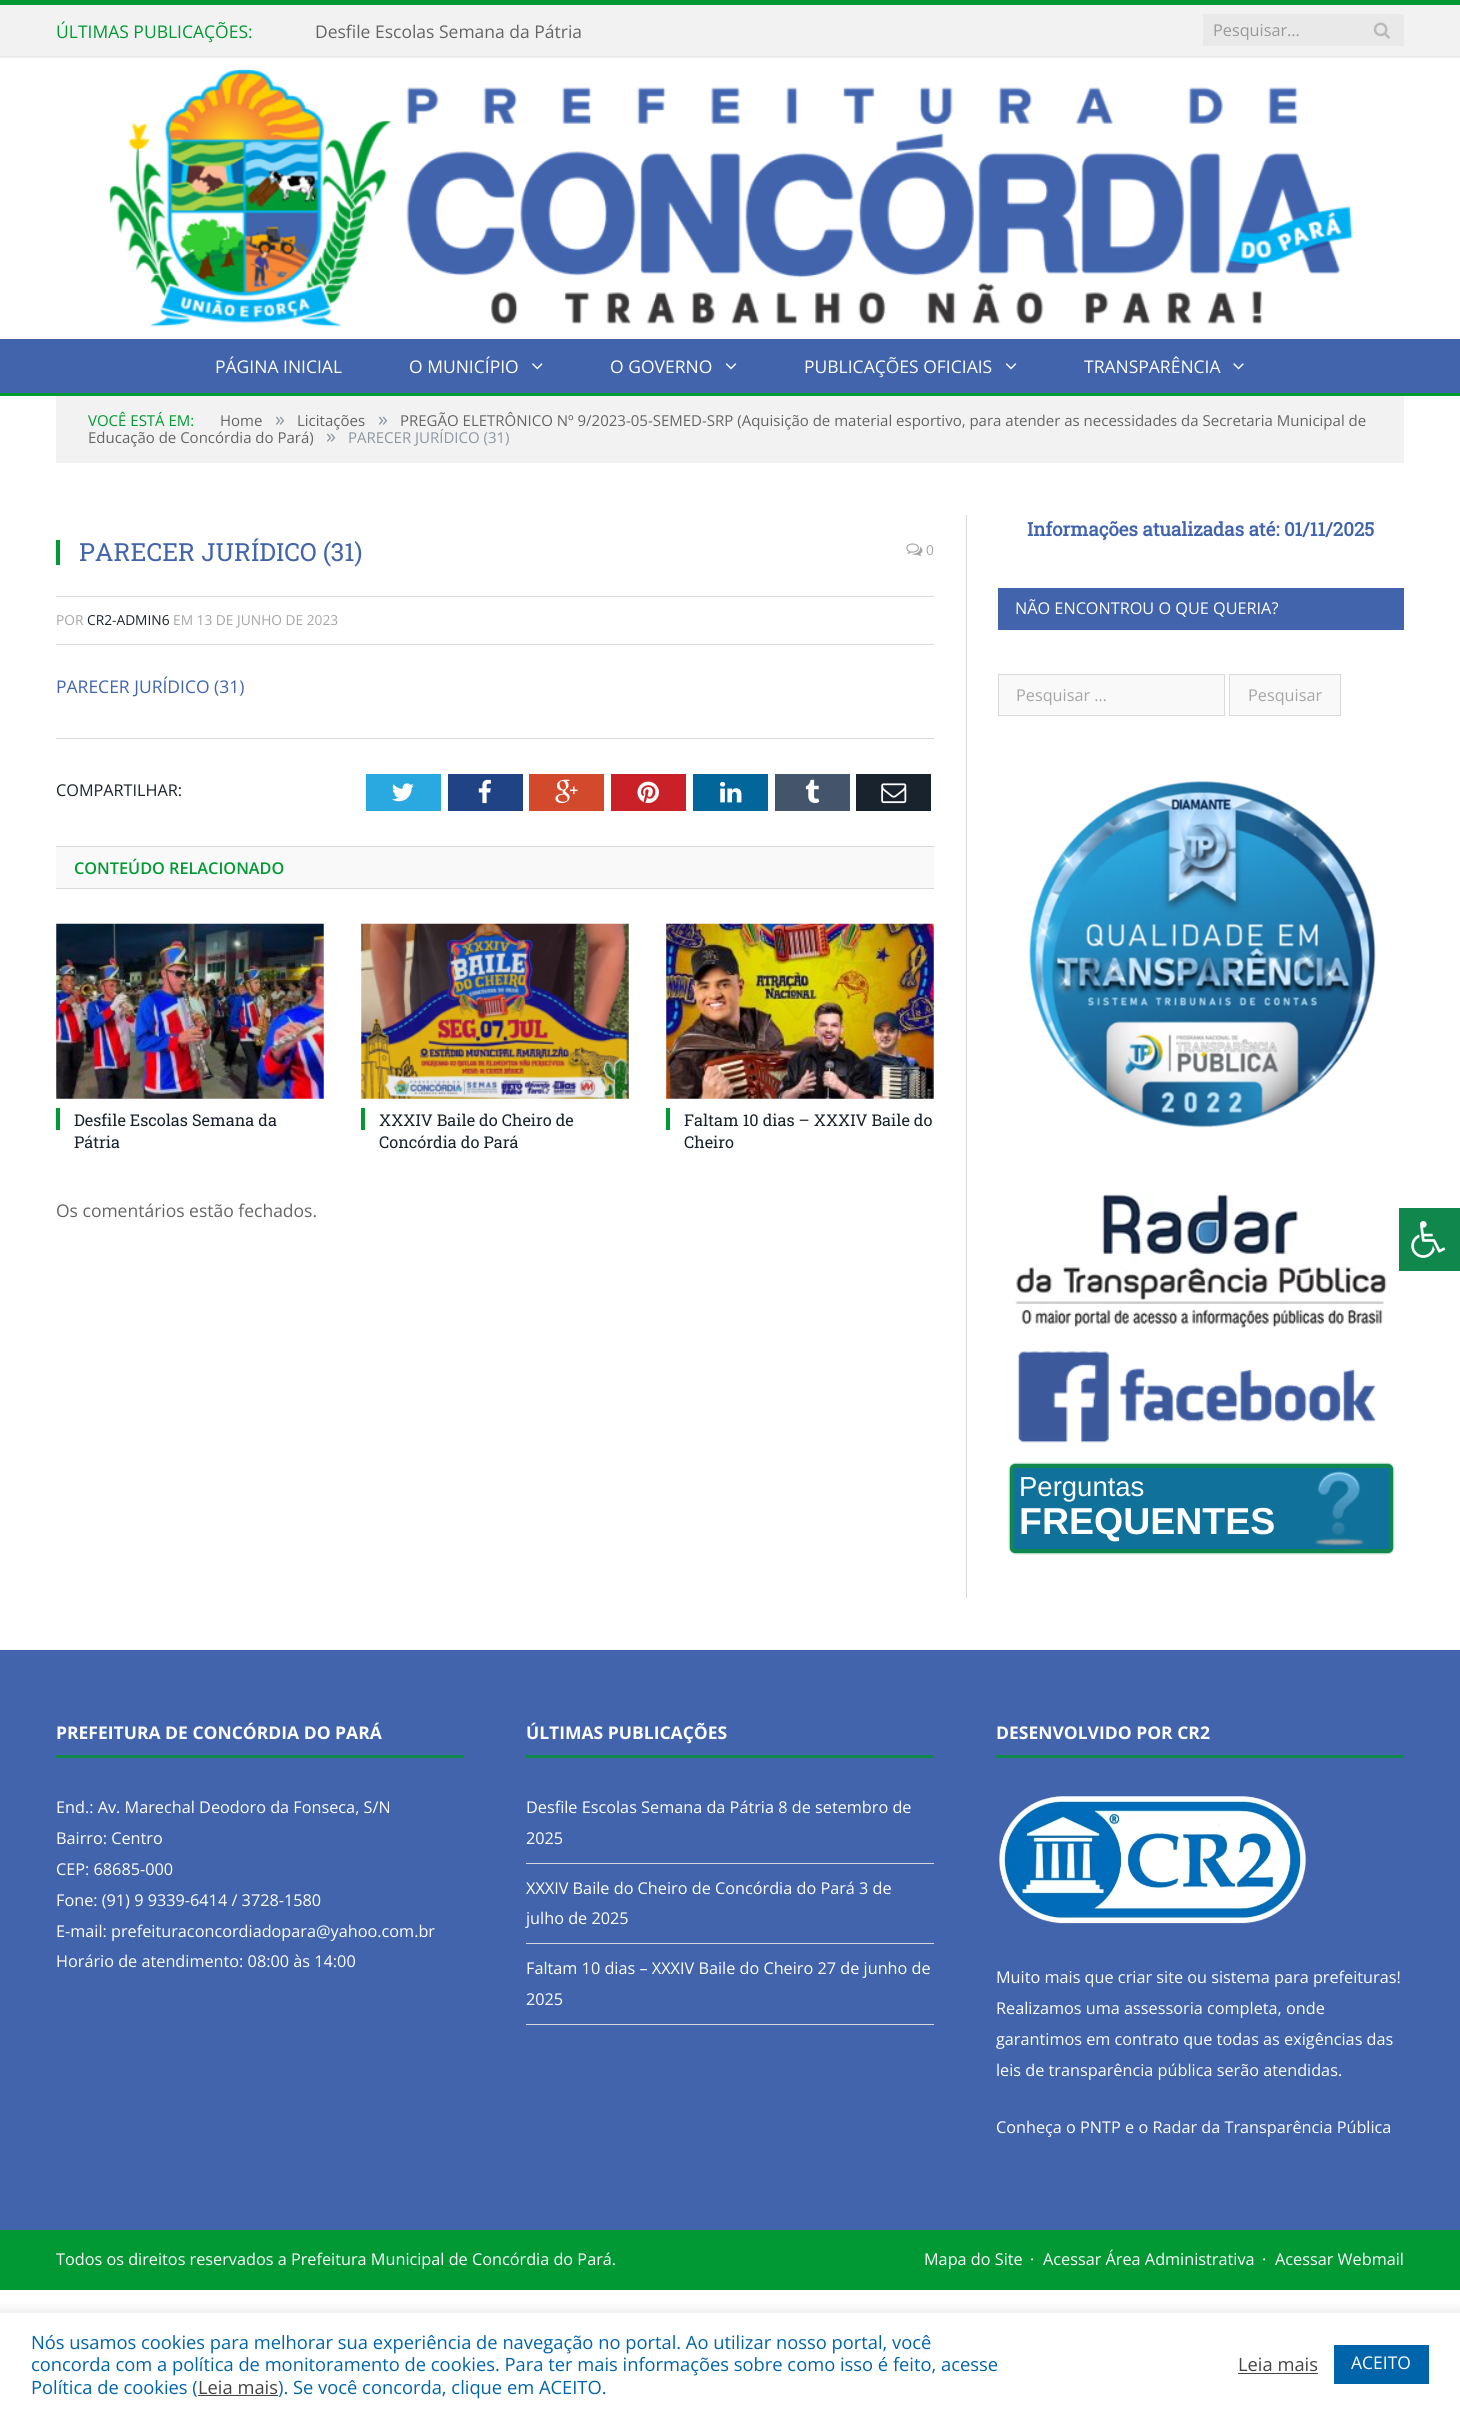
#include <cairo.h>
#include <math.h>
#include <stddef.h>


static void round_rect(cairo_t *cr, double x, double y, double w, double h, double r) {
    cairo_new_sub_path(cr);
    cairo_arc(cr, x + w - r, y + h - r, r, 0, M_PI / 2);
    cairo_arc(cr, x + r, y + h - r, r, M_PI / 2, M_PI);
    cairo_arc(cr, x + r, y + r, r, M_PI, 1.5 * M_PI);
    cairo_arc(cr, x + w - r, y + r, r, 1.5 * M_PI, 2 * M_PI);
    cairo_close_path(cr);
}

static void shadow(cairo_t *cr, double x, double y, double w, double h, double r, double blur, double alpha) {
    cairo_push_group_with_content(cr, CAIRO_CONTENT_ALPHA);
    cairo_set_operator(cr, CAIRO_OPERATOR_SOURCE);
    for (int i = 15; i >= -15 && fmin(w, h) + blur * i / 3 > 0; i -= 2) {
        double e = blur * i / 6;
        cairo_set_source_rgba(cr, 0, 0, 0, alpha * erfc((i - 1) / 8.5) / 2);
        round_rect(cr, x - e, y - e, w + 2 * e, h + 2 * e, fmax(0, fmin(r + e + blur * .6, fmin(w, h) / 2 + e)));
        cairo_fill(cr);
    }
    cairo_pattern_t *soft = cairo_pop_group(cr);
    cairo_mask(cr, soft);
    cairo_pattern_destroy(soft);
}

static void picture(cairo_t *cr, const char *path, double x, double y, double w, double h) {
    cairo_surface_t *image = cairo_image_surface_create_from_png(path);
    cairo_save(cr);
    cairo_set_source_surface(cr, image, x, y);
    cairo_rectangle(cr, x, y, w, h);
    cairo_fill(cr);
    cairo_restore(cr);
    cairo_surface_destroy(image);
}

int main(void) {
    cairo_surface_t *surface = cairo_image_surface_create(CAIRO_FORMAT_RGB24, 1460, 2414);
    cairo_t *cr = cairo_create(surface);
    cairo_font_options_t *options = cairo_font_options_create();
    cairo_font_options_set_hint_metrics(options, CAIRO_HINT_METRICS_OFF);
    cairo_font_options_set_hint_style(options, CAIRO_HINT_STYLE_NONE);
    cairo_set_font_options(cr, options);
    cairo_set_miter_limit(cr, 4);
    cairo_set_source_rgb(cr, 1, 1, 1);
    cairo_paint(cr);
    cairo_set_source_rgb(cr, 0.949, 0.949, 0.949);
    cairo_rectangle(cr, 0, 5, 1460, 53);
    cairo_fill(cr);
    cairo_set_source_rgb(cr, 0, 0.6, 0.2);
    cairo_rectangle(cr, 0, 0, 1460, 5);
    cairo_fill(cr);
    cairo_set_source_rgb(cr, 0.906, 0.906, 0.906);
    cairo_rectangle(cr, 0, 56, 1460, 1);
    cairo_fill(cr);
    cairo_select_font_face(cr, "Open Sans", CAIRO_FONT_SLANT_NORMAL, CAIRO_FONT_WEIGHT_NORMAL);
    cairo_set_font_size(cr, 17.5);
    cairo_set_source_rgb(cr, 0, 0.6, 0.2);
    cairo_move_to(cr, 56, 38);
    cairo_show_text(cr, "ÚLTIMAS PUBLICAÇÕES:");
    cairo_set_source_rgb(cr, 0.396, 0.396, 0.396);
    cairo_move_to(cr, 315, 38);
    cairo_show_text(cr, "Desfile Escolas Semana da Pátria");
    cairo_set_source_rgb(cr, 0.914, 0.914, 0.914);
    cairo_rectangle(cr, 1203, 14, 201, 32);
    cairo_fill(cr);
    cairo_set_font_size(cr, 16.25);
    cairo_set_source_rgb(cr, 0.6, 0.6, 0.6);
    cairo_move_to(cr, 1213, 36);
    cairo_show_text(cr, "Pesquisar...");
    picture(cr, "img1.png", 1373, 22, 17, 17);
    picture(cr, "img2.png", 108, 69, 1245, 258);
    cairo_set_source_rgb(cr, 0.255, 0.392, 0.678);
    cairo_rectangle(cr, 0, 339, 1460, 54);
    cairo_fill(cr);
    cairo_set_source_rgb(cr, 0, 0.6, 0.2);
    cairo_rectangle(cr, 0, 393, 1460, 3);
    cairo_fill(cr);
    cairo_set_font_size(cr, 17.5);
    cairo_set_source_rgb(cr, 1, 1, 1);
    cairo_move_to(cr, 215, 373);
    cairo_show_text(cr, "PÁGINA INICIAL");
    cairo_move_to(cr, 409, 373);
    cairo_show_text(cr, "O MUNICÍPIO");
    picture(cr, "img3.png", 532, 363, 11, 7);
    cairo_move_to(cr, 610, 373);
    cairo_show_text(cr, "O GOVERNO");
    picture(cr, "img4.png", 725, 363, 12, 7);
    cairo_move_to(cr, 804, 373);
    cairo_show_text(cr, "PUBLICAÇÕES OFICIAIS");
    picture(cr, "img4.png", 1005, 363, 12, 7);
    cairo_move_to(cr, 1084, 373);
    cairo_show_text(cr, "TRANSPARÊNCIA");
    picture(cr, "img5.png", 1233, 363, 11, 7);
    cairo_set_source_rgb(cr, 0.949, 0.949, 0.949);
    cairo_rectangle(cr, 56, 396, 1348, 67);
    cairo_fill(cr);
    cairo_set_font_size(cr, 15);
    cairo_set_source_rgb(cr, 0, 0.6, 0.2);
    cairo_move_to(cr, 88, 426);
    cairo_show_text(cr, "VOCÊ ESTÁ EM:");
    cairo_set_source_rgb(cr, 0.396, 0.396, 0.396);
    cairo_move_to(cr, 220, 426);
    cairo_show_text(cr, "Home");
    cairo_set_font_size(cr, 20);
    cairo_set_source_rgb(cr, 0.553, 0.592, 0.631);
    cairo_move_to(cr, 275, 426);
    cairo_show_text(cr, "»");
    cairo_set_font_size(cr, 15);
    cairo_set_source_rgb(cr, 0.396, 0.396, 0.396);
    cairo_move_to(cr, 297, 426);
    cairo_show_text(cr, "Licitações");
    cairo_set_font_size(cr, 20);
    cairo_set_source_rgb(cr, 0.553, 0.592, 0.631);
    cairo_move_to(cr, 378, 426);
    cairo_show_text(cr, "»");
    cairo_set_font_size(cr, 15);
    cairo_set_source_rgb(cr, 0.396, 0.396, 0.396);
    cairo_move_to(cr, 400, 426);
    cairo_show_text(cr, "PREGÃO ELETRÔNICO Nº 9/2023-05-SEMED-SRP (Aquisição de material esportivo, para atender as necessidades da Secretaria Municipal de");
    cairo_move_to(cr, 88, 443);
    cairo_show_text(cr, "Educação de Concórdia do Pará)");
    cairo_set_font_size(cr, 20);
    cairo_set_source_rgb(cr, 0.553, 0.592, 0.631);
    cairo_move_to(cr, 326, 443);
    cairo_show_text(cr, "»");
    cairo_set_font_size(cr, 15);
    cairo_move_to(cr, 348, 443);
    cairo_show_text(cr, "PARECER JURÍDICO (31)");
    cairo_set_source_rgb(cr, 0, 0.6, 0.2);
    cairo_rectangle(cr, 56, 540, 4, 25);
    cairo_fill(cr);
    cairo_select_font_face(cr, "Roboto Slab", CAIRO_FONT_SLANT_NORMAL, CAIRO_FONT_WEIGHT_NORMAL);
    cairo_set_font_size(cr, 25);
    cairo_set_source_rgb(cr, 0.255, 0.392, 0.678);
    cairo_move_to(cr, 79, 561);
    cairo_show_text(cr, "PARECER JURÍDICO (31)");
    picture(cr, "img6.png", 906, 543, 17, 14);
    cairo_select_font_face(cr, "Open Sans", CAIRO_FONT_SLANT_NORMAL, CAIRO_FONT_WEIGHT_NORMAL);
    cairo_set_font_size(cr, 13.75);
    cairo_set_source_rgb(cr, 0.651, 0.651, 0.651);
    cairo_move_to(cr, 926, 555);
    cairo_show_text(cr, "0");
    cairo_set_source_rgb(cr, 0.851, 0.851, 0.851);
    cairo_rectangle(cr, 56, 596, 878, 1);
    cairo_fill(cr);
    cairo_rectangle(cr, 56, 644, 878, 1);
    cairo_fill(cr);
    cairo_set_source_rgb(cr, 0.651, 0.651, 0.651);
    cairo_move_to(cr, 56, 625);
    cairo_show_text(cr, "POR");
    cairo_set_source_rgb(cr, 0.098, 0.137, 0.176);
    cairo_move_to(cr, 87, 625);
    cairo_show_text(cr, "CR2-ADMIN6");
    cairo_set_source_rgb(cr, 0.651, 0.651, 0.651);
    cairo_move_to(cr, 173, 625);
    cairo_show_text(cr, "EM 13 DE JUNHO DE 2023");
    cairo_set_font_size(cr, 17.5);
    cairo_set_source_rgb(cr, 0.255, 0.392, 0.678);
    cairo_move_to(cr, 56, 693);
    cairo_show_text(cr, "PARECER JURÍDICO (31)");
    cairo_set_source_rgb(cr, 0.851, 0.851, 0.851);
    cairo_rectangle(cr, 56, 738, 878, 1);
    cairo_fill(cr);
    cairo_set_font_size(cr, 16.25);
    cairo_set_source_rgb(cr, 0.098, 0.137, 0.176);
    cairo_move_to(cr, 56, 796);
    cairo_show_text(cr, "COMPARTILHAR:");
    cairo_set_source_rgb(cr, 0.165, 0.663, 0.878);
    cairo_rectangle(cr, 366, 774, 75, 37);
    cairo_fill(cr);
    picture(cr, "img7.png", 392, 783, 22, 19);
    cairo_set_source_rgb(cr, 0.125, 0.263, 0.522);
    cairo_rectangle(cr, 448, 774, 75, 37);
    cairo_fill(cr);
    picture(cr, "img8.png", 478, 779, 13, 25);
    cairo_set_source_rgb(cr, 0.827, 0.286, 0.173);
    cairo_rectangle(cr, 529, 774, 75, 37);
    cairo_fill(cr);
    picture(cr, "img9.png", 555, 779, 23, 24);
    cairo_set_source_rgb(cr, 0.792, 0.129, 0.157);
    cairo_rectangle(cr, 611, 774, 75, 37);
    cairo_fill(cr);
    picture(cr, "img10.png", 637, 781, 22, 22);
    cairo_set_source_rgb(cr, 0.008, 0.4, 0.604);
    cairo_rectangle(cr, 693, 774, 75, 37);
    cairo_fill(cr);
    picture(cr, "img11.png", 720, 781, 22, 22);
    cairo_set_source_rgb(cr, 0.267, 0.329, 0.42);
    cairo_rectangle(cr, 775, 774, 75, 37);
    cairo_fill(cr);
    picture(cr, "img12.png", 805, 779, 15, 24);
    cairo_set_source_rgb(cr, 0.098, 0.137, 0.176);
    cairo_rectangle(cr, 856, 774, 75, 37);
    cairo_fill(cr);
    picture(cr, "img13.png", 881, 783, 26, 21);
    cairo_set_source_rgb(cr, 0.976, 0.976, 0.976);
    cairo_rectangle(cr, 56, 847, 878, 41);
    cairo_fill(cr);
    cairo_set_source_rgb(cr, 0.851, 0.851, 0.851);
    cairo_rectangle(cr, 56, 846, 878, 1);
    cairo_fill(cr);
    cairo_rectangle(cr, 56, 888, 878, 1);
    cairo_fill(cr);
    cairo_select_font_face(cr, "Open Sans SemiBold", CAIRO_FONT_SLANT_NORMAL, CAIRO_FONT_WEIGHT_NORMAL);
    cairo_set_source_rgb(cr, 0, 0.6, 0.2);
    cairo_move_to(cr, 74, 874);
    cairo_show_text(cr, "CONTEÚDO RELACIONADO");
    picture(cr, "img14.png", 56, 923, 268, 176);
    cairo_rectangle(cr, 56, 1108, 4, 22);
    cairo_fill(cr);
    cairo_select_font_face(cr, "Roboto Slab", CAIRO_FONT_SLANT_NORMAL, CAIRO_FONT_WEIGHT_NORMAL);
    cairo_set_source_rgb(cr, 0.098, 0.137, 0.176);
    cairo_move_to(cr, 74, 1126);
    cairo_show_text(cr, "Desfile Escolas Semana da");
    cairo_move_to(cr, 74, 1148);
    cairo_show_text(cr, "Pátria");
    picture(cr, "img15.png", 361, 923, 268, 176);
    cairo_set_source_rgb(cr, 0, 0.6, 0.2);
    cairo_rectangle(cr, 361, 1108, 4, 22);
    cairo_fill(cr);
    cairo_set_source_rgb(cr, 0.098, 0.137, 0.176);
    cairo_move_to(cr, 379, 1126);
    cairo_show_text(cr, "XXXIV Baile do Cheiro de");
    cairo_move_to(cr, 379, 1148);
    cairo_show_text(cr, "Concórdia do Pará");
    picture(cr, "img16.png", 666, 923, 268, 176);
    cairo_set_source_rgb(cr, 0, 0.6, 0.2);
    cairo_rectangle(cr, 666, 1108, 4, 22);
    cairo_fill(cr);
    cairo_set_source_rgb(cr, 0.098, 0.137, 0.176);
    cairo_move_to(cr, 684, 1126);
    cairo_show_text(cr, "Faltam 10 dias – XXXIV Baile do");
    cairo_move_to(cr, 684, 1148);
    cairo_show_text(cr, "Cheiro");
    cairo_select_font_face(cr, "Open Sans", CAIRO_FONT_SLANT_NORMAL, CAIRO_FONT_WEIGHT_NORMAL);
    cairo_set_font_size(cr, 17.5);
    cairo_set_source_rgb(cr, 0.396, 0.396, 0.396);
    cairo_move_to(cr, 56, 1217);
    cairo_show_text(cr, "Os comentários estão fechados.");
    cairo_set_source_rgb(cr, 0.851, 0.851, 0.851);
    cairo_rectangle(cr, 966, 515, 1, 1083);
    cairo_fill(cr);
    cairo_select_font_face(cr, "Roboto Slab", CAIRO_FONT_SLANT_NORMAL, CAIRO_FONT_WEIGHT_BOLD);
    cairo_set_font_size(cr, 18.75);
    cairo_set_source_rgb(cr, 0.255, 0.392, 0.678);
    cairo_move_to(cr, 1027, 536);
    cairo_show_text(cr, "Informações atualizadas até: 01/11/2025");
    cairo_rectangle(cr, 998, 588, 406, 42);
    cairo_fill(cr);
    cairo_select_font_face(cr, "Open Sans", CAIRO_FONT_SLANT_NORMAL, CAIRO_FONT_WEIGHT_NORMAL);
    cairo_set_font_size(cr, 16.25);
    cairo_set_source_rgb(cr, 1, 1, 1);
    cairo_move_to(cr, 1015, 614);
    cairo_show_text(cr, "NÃO ENCONTROU O QUE QUERIA?");
    cairo_set_source_rgb(cr, 0.976, 0.976, 0.976);
    cairo_rectangle(cr, 998.5, 674.5, 226, 41);
    cairo_fill_preserve(cr);
    cairo_set_source_rgb(cr, 0.851, 0.851, 0.851);
    cairo_set_line_width(cr, 1);
    cairo_stroke(cr);
    cairo_set_source_rgb(cr, 0.651, 0.651, 0.651);
    cairo_move_to(cr, 1016, 701);
    cairo_show_text(cr, "Pesquisar …");
    cairo_set_source_rgb(cr, 0.976, 0.976, 0.976);
    cairo_rectangle(cr, 1229.5, 674.5, 111, 41);
    cairo_fill_preserve(cr);
    cairo_set_source_rgb(cr, 0.851, 0.851, 0.851);
    cairo_stroke(cr);
    cairo_set_source_rgb(cr, 0.651, 0.651, 0.651);
    cairo_move_to(cr, 1248, 701);
    cairo_show_text(cr, "Pesquisar");
    picture(cr, "img17.png", 1029, 781, 347, 347);
    picture(cr, "img18.png", 1015, 1191, 372, 137);
    picture(cr, "img19.png", 1018, 1351, 358, 92);
    cairo_set_source_rgb(cr, 0.063, 0.529, 0.302);
    shadow(cr, 1010, 1464, 383, 89, 5, 1, 1);
    cairo_set_source_rgb(cr, 0.063, 0.443, 0.604);
    round_rect(cr, 1012, 1466, 379, 85, 3);
    cairo_fill_preserve(cr);
    cairo_set_source_rgb(cr, 0.063, 0.529, 0.302);
    cairo_set_line_width(cr, 4);
    cairo_stroke(cr);
    cairo_select_font_face(cr, "Liberation Sans", CAIRO_FONT_SLANT_NORMAL, CAIRO_FONT_WEIGHT_NORMAL);
    cairo_set_font_size(cr, 27.5);
    cairo_set_source_rgb(cr, 1, 1, 1);
    cairo_move_to(cr, 1019, 1496);
    cairo_show_text(cr, "Perguntas");
    picture(cr, "img20.png", 1315, 1471, 49, 75);
    cairo_select_font_face(cr, "Liberation Sans", CAIRO_FONT_SLANT_NORMAL, CAIRO_FONT_WEIGHT_BOLD);
    cairo_set_font_size(cr, 37.5);
    cairo_move_to(cr, 1019, 1534);
    cairo_show_text(cr, "FREQUENTES");
    cairo_set_source_rgb(cr, 0.255, 0.392, 0.678);
    cairo_rectangle(cr, 0, 1650, 1460, 580);
    cairo_fill(cr);
    cairo_set_source_rgb(cr, 0.063, 0.529, 0.302);
    cairo_rectangle(cr, 56, 1755, 408, 3);
    cairo_fill(cr);
    cairo_select_font_face(cr, "Open Sans", CAIRO_FONT_SLANT_NORMAL, CAIRO_FONT_WEIGHT_BOLD);
    cairo_set_font_size(cr, 17.5);
    cairo_set_source_rgb(cr, 1, 1, 1);
    cairo_move_to(cr, 56, 1739);
    cairo_show_text(cr, "PREFEITURA DE CONCÓRDIA DO PARÁ");
    cairo_select_font_face(cr, "Open Sans", CAIRO_FONT_SLANT_NORMAL, CAIRO_FONT_WEIGHT_NORMAL);
    cairo_set_font_size(cr, 16.25);
    cairo_move_to(cr, 56, 1813);
    cairo_show_text(cr, "End.: Av. Marechal Deodoro da Fonseca, S/N");
    cairo_move_to(cr, 56, 1844);
    cairo_show_text(cr, "Bairro: Centro");
    cairo_move_to(cr, 56, 1875);
    cairo_show_text(cr, "CEP: 68685-000");
    cairo_move_to(cr, 56, 1906);
    cairo_show_text(cr, "Fone: (91) 9 9339-6414 / 3728-1580");
    cairo_move_to(cr, 56, 1937);
    cairo_show_text(cr, "E-mail: prefeituraconcordiadopara@yahoo.com.br");
    cairo_move_to(cr, 56, 1967);
    cairo_show_text(cr, "Horário de atendimento: 08:00 às 14:00");
    cairo_set_source_rgb(cr, 0.063, 0.529, 0.302);
    cairo_rectangle(cr, 526, 1755, 408, 3);
    cairo_fill(cr);
    cairo_select_font_face(cr, "Open Sans", CAIRO_FONT_SLANT_NORMAL, CAIRO_FONT_WEIGHT_BOLD);
    cairo_set_font_size(cr, 17.5);
    cairo_set_source_rgb(cr, 1, 1, 1);
    cairo_move_to(cr, 526, 1739);
    cairo_show_text(cr, "ÚLTIMAS PUBLICAÇÕES");
    cairo_set_source_rgb(cr, 0.851, 0.851, 0.851);
    cairo_rectangle(cr, 526, 1863, 408, 1);
    cairo_fill(cr);
    cairo_select_font_face(cr, "Open Sans", CAIRO_FONT_SLANT_NORMAL, CAIRO_FONT_WEIGHT_NORMAL);
    cairo_set_font_size(cr, 16.25);
    cairo_set_source_rgb(cr, 1, 1, 1);
    cairo_move_to(cr, 526, 1813);
    cairo_show_text(cr, "Desfile Escolas Semana da Pátria 8 de setembro de");
    cairo_move_to(cr, 526, 1844);
    cairo_show_text(cr, "2025");
    cairo_set_source_rgb(cr, 0.851, 0.851, 0.851);
    cairo_rectangle(cr, 526, 1943, 408, 1);
    cairo_fill(cr);
    cairo_set_source_rgb(cr, 1, 1, 1);
    cairo_move_to(cr, 526, 1894);
    cairo_show_text(cr, "XXXIV Baile do Cheiro de Concórdia do Pará 3 de");
    cairo_move_to(cr, 526, 1924);
    cairo_show_text(cr, "julho de 2025");
    cairo_set_source_rgb(cr, 0.851, 0.851, 0.851);
    cairo_rectangle(cr, 526, 2024, 408, 1);
    cairo_fill(cr);
    cairo_set_source_rgb(cr, 1, 1, 1);
    cairo_move_to(cr, 526, 1974);
    cairo_show_text(cr, "Faltam 10 dias – XXXIV Baile do Cheiro 27 de junho de");
    cairo_move_to(cr, 526, 2005);
    cairo_show_text(cr, "2025");
    cairo_set_source_rgb(cr, 0.063, 0.529, 0.302);
    cairo_rectangle(cr, 996, 1755, 408, 3);
    cairo_fill(cr);
    cairo_select_font_face(cr, "Open Sans", CAIRO_FONT_SLANT_NORMAL, CAIRO_FONT_WEIGHT_BOLD);
    cairo_set_font_size(cr, 17.5);
    cairo_set_source_rgb(cr, 1, 1, 1);
    cairo_move_to(cr, 996, 1739);
    cairo_show_text(cr, "DESENVOLVIDO POR CR2");
    picture(cr, "img21.png", 999, 1796, 308, 128);
    cairo_select_font_face(cr, "Open Sans", CAIRO_FONT_SLANT_NORMAL, CAIRO_FONT_WEIGHT_NORMAL);
    cairo_set_font_size(cr, 16.25);
    cairo_move_to(cr, 996, 1983);
    cairo_show_text(cr, "Muito mais que criar site ou sistema para prefeituras!");
    cairo_move_to(cr, 996, 2014);
    cairo_show_text(cr, "Realizamos uma assessoria completa, onde");
    cairo_move_to(cr, 996, 2045);
    cairo_show_text(cr, "garantimos em contrato que todas as exigências das");
    cairo_move_to(cr, 996, 2076);
    cairo_show_text(cr, "leis de transparência pública serão atendidas.");
    cairo_move_to(cr, 996, 2133);
    cairo_show_text(cr, "Conheça o PNTP e o Radar da Transparência Pública");
    cairo_set_source_rgb(cr, 0, 0.6, 0.2);
    cairo_rectangle(cr, 0, 2230, 1460, 60);
    cairo_fill(cr);
    cairo_set_source_rgb(cr, 1, 1, 1);
    cairo_move_to(cr, 56, 2265);
    cairo_show_text(cr, "Todos os direitos reservados a Prefeitura Municipal de Concórdia do Pará.");
    cairo_move_to(cr, 924, 2265);
    cairo_show_text(cr, "Mapa do Site");
    cairo_move_to(cr, 1030, 2265);
    cairo_show_text(cr, "·");
    cairo_move_to(cr, 1043, 2265);
    cairo_show_text(cr, "Acessar Área Administrativa");
    cairo_move_to(cr, 1262, 2265);
    cairo_show_text(cr, "·");
    cairo_move_to(cr, 1275, 2265);
    cairo_show_text(cr, "Acessar Webmail");
    cairo_set_source_rgb(cr, 0.063, 0.529, 0.302);
    cairo_rectangle(cr, 1399, 1208, 61, 63);
    cairo_fill(cr);
    picture(cr, "img22.png", 1411, 1221, 35, 37);
    cairo_save(cr);
    cairo_rectangle(cr, 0, 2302, 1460, 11);
    cairo_clip(cr);
    cairo_set_source_rgb(cr, 0.675, 0.671, 0.671);
    shadow(cr, 0, 2311, 1460, 103, 0, 6, 0.3);
    cairo_restore(cr);
    cairo_set_font_size(cr, 18.33);
    cairo_set_source_rgb(cr, 0, 0.392, 0.671);
    cairo_move_to(cr, 31, 2349);
    cairo_show_text(cr, "Nós usamos cookies para melhorar sua experiência de navegação no portal. Ao utilizar nosso portal, você");
    cairo_move_to(cr, 31, 2371);
    cairo_show_text(cr, "concorda com a política de monitoramento de cookies. Para ter mais informações sobre como isso é feito, acesse");
    cairo_move_to(cr, 31, 2394);
    cairo_show_text(cr, "Política de cookies (");
    cairo_set_source_rgb(cr, 0.267, 0.267, 0.267);
    cairo_move_to(cr, 198, 2394);
    cairo_show_text(cr, "Leia mais");
    cairo_rectangle(cr, 198, 2395, 80, 1);
    cairo_fill(cr);
    cairo_set_source_rgb(cr, 0, 0.392, 0.671);
    cairo_move_to(cr, 278, 2394);
    cairo_show_text(cr, "). Se você concorda, clique em ACEITO.");
    cairo_set_source_rgb(cr, 0.267, 0.267, 0.267);
    cairo_move_to(cr, 1238, 2371);
    cairo_show_text(cr, "Leia mais");
    cairo_rectangle(cr, 1238, 2373, 80, 1);
    cairo_fill(cr);
    cairo_set_source_rgb(cr, 0, 0.392, 0.671);
    cairo_rectangle(cr, 1334, 2345, 95, 39);
    cairo_fill(cr);
    cairo_set_font_size(cr, 17.5);
    cairo_set_source_rgb(cr, 1, 1, 1);
    cairo_move_to(cr, 1351, 2369);
    cairo_show_text(cr, "ACEITO");
    cairo_surface_write_to_png(surface, "page.png");
    cairo_font_options_destroy(options);
    cairo_destroy(cr);
    cairo_surface_destroy(surface);
    return 0;
}
